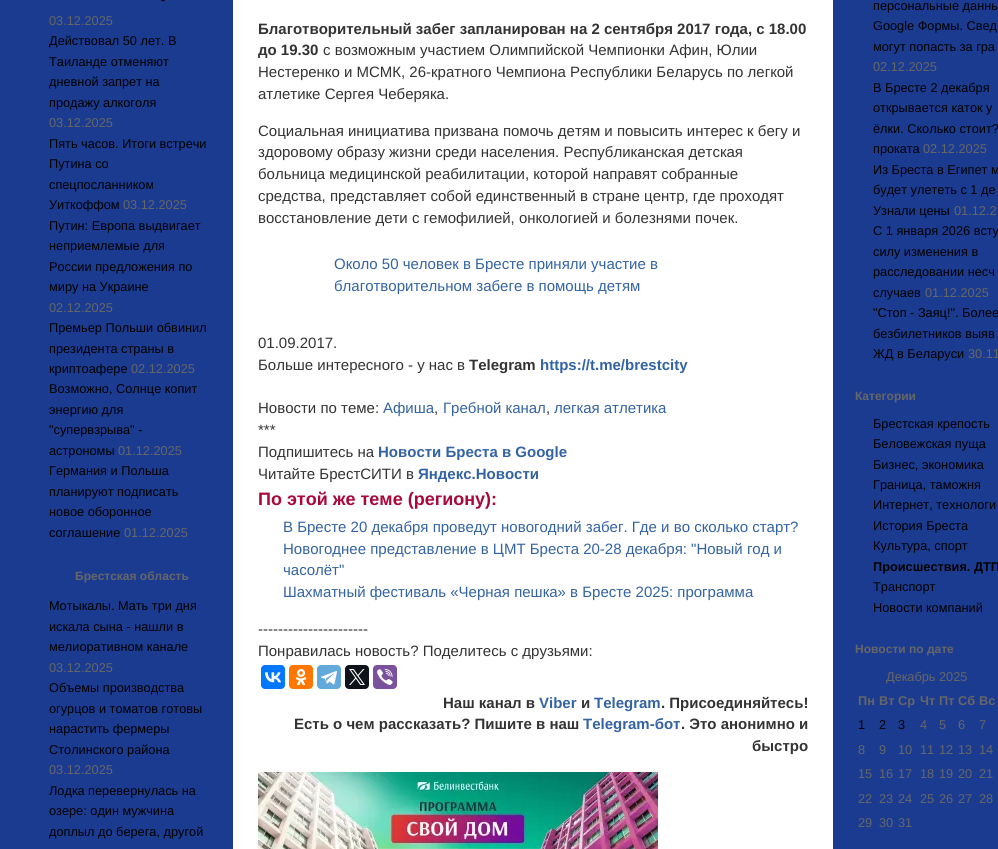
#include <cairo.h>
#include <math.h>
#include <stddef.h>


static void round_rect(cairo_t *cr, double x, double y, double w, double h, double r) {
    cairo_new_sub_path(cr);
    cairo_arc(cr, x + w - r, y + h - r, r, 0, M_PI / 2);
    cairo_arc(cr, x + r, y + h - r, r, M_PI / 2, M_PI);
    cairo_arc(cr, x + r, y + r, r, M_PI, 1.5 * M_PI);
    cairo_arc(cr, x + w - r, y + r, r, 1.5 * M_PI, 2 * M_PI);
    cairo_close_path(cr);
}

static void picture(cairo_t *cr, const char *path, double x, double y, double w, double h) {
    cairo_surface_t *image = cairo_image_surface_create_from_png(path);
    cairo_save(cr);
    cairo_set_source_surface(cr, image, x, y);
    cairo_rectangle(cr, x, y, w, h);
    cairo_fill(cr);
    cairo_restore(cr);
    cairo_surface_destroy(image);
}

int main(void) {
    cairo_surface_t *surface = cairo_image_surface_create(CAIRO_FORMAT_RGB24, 998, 849);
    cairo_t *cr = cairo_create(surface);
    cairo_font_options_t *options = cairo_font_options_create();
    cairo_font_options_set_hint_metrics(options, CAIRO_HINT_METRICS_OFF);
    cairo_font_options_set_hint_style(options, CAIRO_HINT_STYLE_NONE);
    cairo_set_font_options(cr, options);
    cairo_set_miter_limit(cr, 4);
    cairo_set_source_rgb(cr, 0.106, 0.231, 0.565);
    cairo_paint(cr);
    cairo_select_font_face(cr, "Liberation Sans", CAIRO_FONT_SLANT_NORMAL, CAIRO_FONT_WEIGHT_NORMAL);
    cairo_set_font_size(cr, 12.75);
    cairo_set_source_rgb(cr, 0, 0, 0);
    cairo_move_to(cr, 161, 4);
    cairo_show_text(cr, "-");
    cairo_set_source_rgb(cr, 0.4, 0.4, 0.4);
    cairo_move_to(cr, 49, 25);
    cairo_show_text(cr, "03.12.2025");
    cairo_set_source_rgb(cr, 0, 0, 0);
    cairo_move_to(cr, 49, 45);
    cairo_show_text(cr, "Действовал 50 лет. В");
    cairo_move_to(cr, 49, 66);
    cairo_show_text(cr, "Таиланде отменяют");
    cairo_move_to(cr, 49, 86);
    cairo_show_text(cr, "дневной запрет на");
    cairo_move_to(cr, 49, 107);
    cairo_show_text(cr, "продажу алкоголя");
    cairo_set_source_rgb(cr, 0.4, 0.4, 0.4);
    cairo_move_to(cr, 49, 127);
    cairo_show_text(cr, "03.12.2025");
    cairo_set_source_rgb(cr, 0, 0, 0);
    cairo_move_to(cr, 49, 148);
    cairo_show_text(cr, "Пять часов. Итоги встречи");
    cairo_move_to(cr, 49, 168);
    cairo_show_text(cr, "Путина со");
    cairo_move_to(cr, 49, 189);
    cairo_show_text(cr, "спецпосланником");
    cairo_move_to(cr, 49, 209);
    cairo_show_text(cr, "Уиткоффом");
    cairo_set_source_rgb(cr, 0.4, 0.4, 0.4);
    cairo_move_to(cr, 123, 209);
    cairo_show_text(cr, "03.12.2025");
    cairo_set_source_rgb(cr, 0, 0, 0);
    cairo_move_to(cr, 49, 230);
    cairo_show_text(cr, "Путин: Европа выдвигает");
    cairo_move_to(cr, 49, 250);
    cairo_show_text(cr, "неприемлемые для");
    cairo_move_to(cr, 49, 271);
    cairo_show_text(cr, "России предложения по");
    cairo_move_to(cr, 49, 291);
    cairo_show_text(cr, "миру на Украине");
    cairo_set_source_rgb(cr, 0.4, 0.4, 0.4);
    cairo_move_to(cr, 49, 312);
    cairo_show_text(cr, "02.12.2025");
    cairo_set_source_rgb(cr, 0, 0, 0);
    cairo_move_to(cr, 49, 332);
    cairo_show_text(cr, "Премьер Польши обвинил");
    cairo_move_to(cr, 49, 353);
    cairo_show_text(cr, "президента страны в");
    cairo_move_to(cr, 49, 373);
    cairo_show_text(cr, "криптоафере");
    cairo_set_source_rgb(cr, 0.4, 0.4, 0.4);
    cairo_move_to(cr, 131, 373);
    cairo_show_text(cr, "02.12.2025");
    cairo_set_source_rgb(cr, 0, 0, 0);
    cairo_move_to(cr, 49, 393);
    cairo_show_text(cr, "Возможно, Солнце копит");
    cairo_move_to(cr, 49, 414);
    cairo_show_text(cr, "энергию для");
    cairo_move_to(cr, 49, 434);
    cairo_show_text(cr, "\"супервзрыва\" -");
    cairo_move_to(cr, 49, 455);
    cairo_show_text(cr, "астрономы");
    cairo_set_source_rgb(cr, 0.4, 0.4, 0.4);
    cairo_move_to(cr, 118, 455);
    cairo_show_text(cr, "01.12.2025");
    cairo_set_source_rgb(cr, 0, 0, 0);
    cairo_move_to(cr, 49, 475);
    cairo_show_text(cr, "Германия и Польша");
    cairo_move_to(cr, 49, 496);
    cairo_show_text(cr, "планируют подписать");
    cairo_move_to(cr, 49, 516);
    cairo_show_text(cr, "новое оборонное");
    cairo_move_to(cr, 49, 537);
    cairo_show_text(cr, "соглашение");
    cairo_set_source_rgb(cr, 0.4, 0.4, 0.4);
    cairo_move_to(cr, 124, 537);
    cairo_show_text(cr, "01.12.2025");
    cairo_select_font_face(cr, "Liberation Sans", CAIRO_FONT_SLANT_NORMAL, CAIRO_FONT_WEIGHT_BOLD);
    cairo_set_font_size(cr, 12);
    cairo_move_to(cr, 75, 580);
    cairo_show_text(cr, "Брестская область");
    cairo_select_font_face(cr, "Liberation Sans", CAIRO_FONT_SLANT_NORMAL, CAIRO_FONT_WEIGHT_NORMAL);
    cairo_set_font_size(cr, 12.75);
    cairo_set_source_rgb(cr, 0, 0, 0);
    cairo_move_to(cr, 49, 610);
    cairo_show_text(cr, "Мотыкалы. Мать три дня");
    cairo_move_to(cr, 49, 631);
    cairo_show_text(cr, "искала сына - нашли в");
    cairo_move_to(cr, 49, 651);
    cairo_show_text(cr, "мелиоративном канале");
    cairo_set_source_rgb(cr, 0.4, 0.4, 0.4);
    cairo_move_to(cr, 49, 672);
    cairo_show_text(cr, "03.12.2025");
    cairo_set_source_rgb(cr, 0, 0, 0);
    cairo_move_to(cr, 49, 692);
    cairo_show_text(cr, "Объемы производства");
    cairo_move_to(cr, 49, 713);
    cairo_show_text(cr, "огурцов и томатов готовы");
    cairo_move_to(cr, 49, 733);
    cairo_show_text(cr, "нарастить фермеры");
    cairo_move_to(cr, 49, 754);
    cairo_show_text(cr, "Столинского района");
    cairo_set_source_rgb(cr, 0.4, 0.4, 0.4);
    cairo_move_to(cr, 49, 774);
    cairo_show_text(cr, "03.12.2025");
    cairo_set_source_rgb(cr, 0, 0, 0);
    cairo_move_to(cr, 49, 795);
    cairo_show_text(cr, "Лодка перевернулась на");
    cairo_move_to(cr, 49, 815);
    cairo_show_text(cr, "озере: один мужчина");
    cairo_move_to(cr, 49, 836);
    cairo_show_text(cr, "доплыл до берега, другой");
    cairo_set_source_rgb(cr, 1, 1, 1);
    cairo_rectangle(cr, 233, 0, 600, 849);
    cairo_fill(cr);
    cairo_select_font_face(cr, "Liberation Sans", CAIRO_FONT_SLANT_NORMAL, CAIRO_FONT_WEIGHT_BOLD);
    cairo_set_font_size(cr, 15);
    cairo_set_source_rgb(cr, 0.2, 0.2, 0.2);
    cairo_move_to(cr, 258, 34);
    cairo_show_text(cr, "Благотворительный забег запланирован на 2 сентября 2017 года, с 18.00");
    cairo_move_to(cr, 258, 55);
    cairo_show_text(cr, "до 19.30");
    cairo_select_font_face(cr, "Liberation Sans", CAIRO_FONT_SLANT_NORMAL, CAIRO_FONT_WEIGHT_NORMAL);
    cairo_move_to(cr, 323, 55);
    cairo_show_text(cr, "с возможным участием Олимпийской Чемпионки Афин, Юлии");
    cairo_move_to(cr, 258, 77);
    cairo_show_text(cr, "Нестеренко и МСМК, 26-кратного Чемпиона Республики Беларусь по легкой");
    cairo_move_to(cr, 258, 99);
    cairo_show_text(cr, "атлетике Сергея Чеберяка.");
    cairo_move_to(cr, 258, 136);
    cairo_show_text(cr, "Социальная инициатива призвана помочь детям и повысить интерес к бегу и");
    cairo_move_to(cr, 258, 157);
    cairo_show_text(cr, "здоровому образу жизни среди населения. Республиканская детская");
    cairo_move_to(cr, 258, 179);
    cairo_show_text(cr, "больница медицинской реабилитации, которой направят собранные");
    cairo_move_to(cr, 258, 201);
    cairo_show_text(cr, "средства, представляет собой единственный в стране центр, где проходят");
    cairo_move_to(cr, 258, 223);
    cairo_show_text(cr, "восстановление дети с гемофилией, онкологией и болезнями почек.");
    cairo_set_source_rgb(cr, 0.2, 0.388, 0.639);
    cairo_move_to(cr, 334, 269);
    cairo_show_text(cr, "Около 50 человек в Бресте приняли участие в");
    cairo_move_to(cr, 334, 291);
    cairo_show_text(cr, "благотворительном забеге в помощь детям");
    cairo_set_source_rgb(cr, 0.2, 0.2, 0.2);
    cairo_move_to(cr, 258, 348);
    cairo_show_text(cr, "01.09.2017.");
    cairo_move_to(cr, 258, 370);
    cairo_show_text(cr, "Больше интересного - у нас в");
    cairo_select_font_face(cr, "Liberation Sans", CAIRO_FONT_SLANT_NORMAL, CAIRO_FONT_WEIGHT_BOLD);
    cairo_move_to(cr, 469, 370);
    cairo_show_text(cr, "Telegram");
    cairo_set_source_rgb(cr, 0.2, 0.388, 0.639);
    cairo_move_to(cr, 540, 370);
    cairo_show_text(cr, "https://t.me/brestcity");
    cairo_select_font_face(cr, "Liberation Sans", CAIRO_FONT_SLANT_NORMAL, CAIRO_FONT_WEIGHT_NORMAL);
    cairo_set_source_rgb(cr, 0.2, 0.2, 0.2);
    cairo_move_to(cr, 258, 413);
    cairo_show_text(cr, "Новости по теме:");
    cairo_set_source_rgb(cr, 0.2, 0.388, 0.639);
    cairo_move_to(cr, 383, 413);
    cairo_show_text(cr, "Афиша");
    cairo_set_source_rgb(cr, 0.2, 0.2, 0.2);
    cairo_move_to(cr, 434, 413);
    cairo_show_text(cr, ",");
    cairo_set_source_rgb(cr, 0.2, 0.388, 0.639);
    cairo_move_to(cr, 443, 413);
    cairo_show_text(cr, "Гребной канал");
    cairo_set_source_rgb(cr, 0.2, 0.2, 0.2);
    cairo_move_to(cr, 546, 413);
    cairo_show_text(cr, ",");
    cairo_set_source_rgb(cr, 0.2, 0.388, 0.639);
    cairo_move_to(cr, 554, 413);
    cairo_show_text(cr, "легкая атлетика");
    cairo_set_source_rgb(cr, 0.2, 0.2, 0.2);
    cairo_move_to(cr, 258, 435);
    cairo_show_text(cr, "***");
    cairo_move_to(cr, 258, 457);
    cairo_show_text(cr, "Подпишитесь на");
    cairo_select_font_face(cr, "Liberation Sans", CAIRO_FONT_SLANT_NORMAL, CAIRO_FONT_WEIGHT_BOLD);
    cairo_set_source_rgb(cr, 0.2, 0.388, 0.639);
    cairo_move_to(cr, 378, 457);
    cairo_show_text(cr, "Новости Бреста в Google");
    cairo_select_font_face(cr, "Liberation Sans", CAIRO_FONT_SLANT_NORMAL, CAIRO_FONT_WEIGHT_NORMAL);
    cairo_set_source_rgb(cr, 0.2, 0.2, 0.2);
    cairo_move_to(cr, 258, 479);
    cairo_show_text(cr, "Читайте БрестСИТИ в");
    cairo_select_font_face(cr, "Liberation Sans", CAIRO_FONT_SLANT_NORMAL, CAIRO_FONT_WEIGHT_BOLD);
    cairo_set_source_rgb(cr, 0.2, 0.388, 0.639);
    cairo_move_to(cr, 418, 479);
    cairo_show_text(cr, "Яндекс.Новости");
    cairo_set_font_size(cr, 18);
    cairo_set_source_rgb(cr, 0.667, 0.035, 0.227);
    cairo_move_to(cr, 258, 505);
    cairo_show_text(cr, "По этой же теме (региону):");
    cairo_select_font_face(cr, "Liberation Sans", CAIRO_FONT_SLANT_NORMAL, CAIRO_FONT_WEIGHT_NORMAL);
    cairo_set_font_size(cr, 15);
    cairo_set_source_rgb(cr, 0.2, 0.388, 0.639);
    cairo_move_to(cr, 283, 532);
    cairo_show_text(cr, "В Бресте 20 декабря проведут новогодний забег. Где и во сколько старт?");
    cairo_move_to(cr, 283, 554);
    cairo_show_text(cr, "Новогоднее представление в ЦМТ Бреста 20-28 декабря: \"Новый год и");
    cairo_move_to(cr, 283, 575);
    cairo_show_text(cr, "часолёт\"");
    cairo_move_to(cr, 283, 597);
    cairo_show_text(cr, "Шахматный фестиваль «Черная пешка» в Бресте 2025: программа");
    cairo_set_source_rgb(cr, 0.2, 0.2, 0.2);
    cairo_move_to(cr, 258, 634);
    cairo_show_text(cr, "----------------------");
    cairo_move_to(cr, 258, 656);
    cairo_show_text(cr, "Понравилась новость? Поделитесь с друзьями:");
    cairo_set_source_rgb(cr, 0, 0.467, 1);
    round_rect(cr, 261, 665, 24, 24, 4);
    cairo_fill(cr);
    picture(cr, "img1.png", 265, 672, 16, 11);
    cairo_set_source_rgb(cr, 1, 0.467, 0);
    round_rect(cr, 289, 665, 24, 24, 4);
    cairo_fill(cr);
    picture(cr, "img2.png", 295, 669, 12, 16);
    cairo_set_source_rgb(cr, 0.392, 0.663, 0.863);
    round_rect(cr, 317, 665, 24, 24, 4);
    cairo_fill(cr);
    picture(cr, "img3.png", 321, 671, 16, 14);
    cairo_set_source_rgb(cr, 0.059, 0.078, 0.098);
    round_rect(cr, 345, 665, 24, 24, 4);
    cairo_fill(cr);
    picture(cr, "img4.png", 349, 669, 16, 16);
    cairo_set_source_rgb(cr, 0.482, 0.318, 0.616);
    round_rect(cr, 373, 665, 24, 24, 4);
    cairo_fill(cr);
    picture(cr, "img5.png", 377, 669, 16, 16);
    cairo_select_font_face(cr, "Liberation Sans", CAIRO_FONT_SLANT_NORMAL, CAIRO_FONT_WEIGHT_BOLD);
    cairo_set_source_rgb(cr, 0.2, 0.2, 0.2);
    cairo_move_to(cr, 443, 708);
    cairo_show_text(cr, "Наш канал в");
    cairo_set_source_rgb(cr, 0.2, 0.388, 0.639);
    cairo_move_to(cr, 539, 708);
    cairo_show_text(cr, "Viber");
    cairo_set_source_rgb(cr, 0.2, 0.2, 0.2);
    cairo_move_to(cr, 581, 708);
    cairo_show_text(cr, "и");
    cairo_set_source_rgb(cr, 0.2, 0.388, 0.639);
    cairo_move_to(cr, 594, 708);
    cairo_show_text(cr, "Telegram");
    cairo_set_source_rgb(cr, 0.2, 0.2, 0.2);
    cairo_move_to(cr, 661, 708);
    cairo_show_text(cr, ". Присоединяйтесь!");
    cairo_move_to(cr, 294, 729);
    cairo_show_text(cr, "Есть о чем рассказать? Пишите в наш");
    cairo_set_source_rgb(cr, 0.2, 0.388, 0.639);
    cairo_move_to(cr, 583, 729);
    cairo_show_text(cr, "Telegram-бот");
    cairo_set_source_rgb(cr, 0.2, 0.2, 0.2);
    cairo_move_to(cr, 681, 729);
    cairo_show_text(cr, ". Это анонимно и");
    cairo_move_to(cr, 752, 751);
    cairo_show_text(cr, "быстро");
    picture(cr, "img6.png", 258, 772, 400, 77);
    cairo_select_font_face(cr, "Liberation Sans", CAIRO_FONT_SLANT_NORMAL, CAIRO_FONT_WEIGHT_NORMAL);
    cairo_set_font_size(cr, 12.75);
    cairo_set_source_rgb(cr, 0, 0, 0);
    cairo_move_to(cr, 873, 10);
    cairo_show_text(cr, "персональные данны");
    cairo_move_to(cr, 873, 30);
    cairo_show_text(cr, "Google Формы. Свед");
    cairo_move_to(cr, 873, 51);
    cairo_show_text(cr, "могут попасть за гра");
    cairo_set_source_rgb(cr, 0.4, 0.4, 0.4);
    cairo_move_to(cr, 873, 71);
    cairo_show_text(cr, "02.12.2025");
    cairo_set_source_rgb(cr, 0, 0, 0);
    cairo_move_to(cr, 873, 92);
    cairo_show_text(cr, "В Бресте 2 декабря");
    cairo_move_to(cr, 873, 112);
    cairo_show_text(cr, "открывается каток у");
    cairo_move_to(cr, 873, 133);
    cairo_show_text(cr, "ёлки. Сколько стоит?");
    cairo_move_to(cr, 873, 153);
    cairo_show_text(cr, "проката");
    cairo_set_source_rgb(cr, 0.4, 0.4, 0.4);
    cairo_move_to(cr, 923, 153);
    cairo_show_text(cr, "02.12.2025");
    cairo_set_source_rgb(cr, 0, 0, 0);
    cairo_move_to(cr, 873, 174);
    cairo_show_text(cr, "Из Бреста в Египет м");
    cairo_move_to(cr, 873, 194);
    cairo_show_text(cr, "будет улететь с 1 де");
    cairo_move_to(cr, 873, 215);
    cairo_show_text(cr, "Узнали цены");
    cairo_set_source_rgb(cr, 0.4, 0.4, 0.4);
    cairo_move_to(cr, 954, 215);
    cairo_show_text(cr, "01.12.2");
    cairo_set_source_rgb(cr, 0, 0, 0);
    cairo_move_to(cr, 873, 235);
    cairo_show_text(cr, "С 1 января 2026 всту");
    cairo_move_to(cr, 873, 256);
    cairo_show_text(cr, "силу изменения в");
    cairo_move_to(cr, 873, 276);
    cairo_show_text(cr, "расследовании несч");
    cairo_move_to(cr, 873, 297);
    cairo_show_text(cr, "случаев");
    cairo_set_source_rgb(cr, 0.4, 0.4, 0.4);
    cairo_move_to(cr, 925, 297);
    cairo_show_text(cr, "01.12.2025");
    cairo_set_source_rgb(cr, 0, 0, 0);
    cairo_move_to(cr, 873, 317);
    cairo_show_text(cr, "\"Стоп - Заяц!\". Более");
    cairo_move_to(cr, 873, 338);
    cairo_show_text(cr, "безбилетников выяв");
    cairo_move_to(cr, 873, 358);
    cairo_show_text(cr, "ЖД в Беларуси");
    cairo_set_source_rgb(cr, 0.4, 0.4, 0.4);
    cairo_move_to(cr, 968, 358);
    cairo_show_text(cr, "30.11");
    cairo_select_font_face(cr, "Liberation Sans", CAIRO_FONT_SLANT_NORMAL, CAIRO_FONT_WEIGHT_BOLD);
    cairo_set_font_size(cr, 12);
    cairo_move_to(cr, 855, 400);
    cairo_show_text(cr, "Категории");
    cairo_select_font_face(cr, "Liberation Sans", CAIRO_FONT_SLANT_NORMAL, CAIRO_FONT_WEIGHT_NORMAL);
    cairo_set_font_size(cr, 12.75);
    cairo_set_source_rgb(cr, 0, 0, 0);
    cairo_move_to(cr, 873, 428);
    cairo_show_text(cr, "Брестская крепость");
    cairo_move_to(cr, 873, 448);
    cairo_show_text(cr, "Беловежская пуща");
    cairo_move_to(cr, 873, 469);
    cairo_show_text(cr, "Бизнес, экономика");
    cairo_move_to(cr, 873, 489);
    cairo_show_text(cr, "Граница, таможня");
    cairo_move_to(cr, 873, 509);
    cairo_show_text(cr, "Интернет, технологи");
    cairo_move_to(cr, 873, 530);
    cairo_show_text(cr, "История Бреста");
    cairo_move_to(cr, 873, 550);
    cairo_show_text(cr, "Культура, спорт");
    cairo_select_font_face(cr, "Liberation Sans", CAIRO_FONT_SLANT_NORMAL, CAIRO_FONT_WEIGHT_BOLD);
    cairo_move_to(cr, 873, 571);
    cairo_show_text(cr, "Происшествия. ДТП");
    cairo_select_font_face(cr, "Liberation Sans", CAIRO_FONT_SLANT_NORMAL, CAIRO_FONT_WEIGHT_NORMAL);
    cairo_move_to(cr, 873, 591);
    cairo_show_text(cr, "Транспорт");
    cairo_move_to(cr, 873, 612);
    cairo_show_text(cr, "Новости компаний");
    cairo_select_font_face(cr, "Liberation Sans", CAIRO_FONT_SLANT_NORMAL, CAIRO_FONT_WEIGHT_BOLD);
    cairo_set_font_size(cr, 12);
    cairo_set_source_rgb(cr, 0.4, 0.4, 0.4);
    cairo_move_to(cr, 855, 653);
    cairo_show_text(cr, "Новости по дате");
    cairo_select_font_face(cr, "Liberation Sans", CAIRO_FONT_SLANT_NORMAL, CAIRO_FONT_WEIGHT_NORMAL);
    cairo_set_font_size(cr, 12.75);
    cairo_move_to(cr, 886, 681);
    cairo_show_text(cr, "Декабрь 2025");
    cairo_select_font_face(cr, "Liberation Sans", CAIRO_FONT_SLANT_NORMAL, CAIRO_FONT_WEIGHT_BOLD);
    cairo_move_to(cr, 858, 705);
    cairo_show_text(cr, "Пн");
    cairo_move_to(cr, 879, 705);
    cairo_show_text(cr, "Вт");
    cairo_move_to(cr, 898, 705);
    cairo_show_text(cr, "Ср");
    cairo_move_to(cr, 920, 705);
    cairo_show_text(cr, "Чт");
    cairo_move_to(cr, 939, 705);
    cairo_show_text(cr, "Пт");
    cairo_move_to(cr, 958, 705);
    cairo_show_text(cr, "Сб");
    cairo_move_to(cr, 979, 705);
    cairo_show_text(cr, "Вс");
    cairo_select_font_face(cr, "Liberation Sans", CAIRO_FONT_SLANT_NORMAL, CAIRO_FONT_WEIGHT_NORMAL);
    cairo_set_source_rgb(cr, 0, 0, 0);
    cairo_move_to(cr, 858, 729);
    cairo_show_text(cr, "1");
    cairo_move_to(cr, 879, 729);
    cairo_show_text(cr, "2");
    cairo_move_to(cr, 898, 729);
    cairo_show_text(cr, "3");
    cairo_set_source_rgb(cr, 0.4, 0.4, 0.4);
    cairo_move_to(cr, 920, 729);
    cairo_show_text(cr, "4");
    cairo_move_to(cr, 939, 729);
    cairo_show_text(cr, "5");
    cairo_move_to(cr, 958, 729);
    cairo_show_text(cr, "6");
    cairo_move_to(cr, 979, 729);
    cairo_show_text(cr, "7");
    cairo_move_to(cr, 858, 754);
    cairo_show_text(cr, "8");
    cairo_move_to(cr, 879, 754);
    cairo_show_text(cr, "9");
    cairo_move_to(cr, 898, 754);
    cairo_show_text(cr, "10");
    cairo_move_to(cr, 920, 754);
    cairo_show_text(cr, "11");
    cairo_move_to(cr, 939, 754);
    cairo_show_text(cr, "12");
    cairo_move_to(cr, 958, 754);
    cairo_show_text(cr, "13");
    cairo_move_to(cr, 979, 754);
    cairo_show_text(cr, "14");
    cairo_move_to(cr, 858, 778);
    cairo_show_text(cr, "15");
    cairo_move_to(cr, 879, 778);
    cairo_show_text(cr, "16");
    cairo_move_to(cr, 898, 778);
    cairo_show_text(cr, "17");
    cairo_move_to(cr, 920, 778);
    cairo_show_text(cr, "18");
    cairo_move_to(cr, 939, 778);
    cairo_show_text(cr, "19");
    cairo_move_to(cr, 958, 778);
    cairo_show_text(cr, "20");
    cairo_move_to(cr, 979, 778);
    cairo_show_text(cr, "21");
    cairo_move_to(cr, 858, 803);
    cairo_show_text(cr, "22");
    cairo_move_to(cr, 879, 803);
    cairo_show_text(cr, "23");
    cairo_move_to(cr, 898, 803);
    cairo_show_text(cr, "24");
    cairo_move_to(cr, 920, 803);
    cairo_show_text(cr, "25");
    cairo_move_to(cr, 939, 803);
    cairo_show_text(cr, "26");
    cairo_move_to(cr, 958, 803);
    cairo_show_text(cr, "27");
    cairo_move_to(cr, 979, 803);
    cairo_show_text(cr, "28");
    cairo_move_to(cr, 858, 827);
    cairo_show_text(cr, "29");
    cairo_move_to(cr, 879, 827);
    cairo_show_text(cr, "30");
    cairo_move_to(cr, 898, 827);
    cairo_show_text(cr, "31");
    cairo_surface_write_to_png(surface, "page.png");
    cairo_font_options_destroy(options);
    cairo_destroy(cr);
    cairo_surface_destroy(surface);
    return 0;
}
